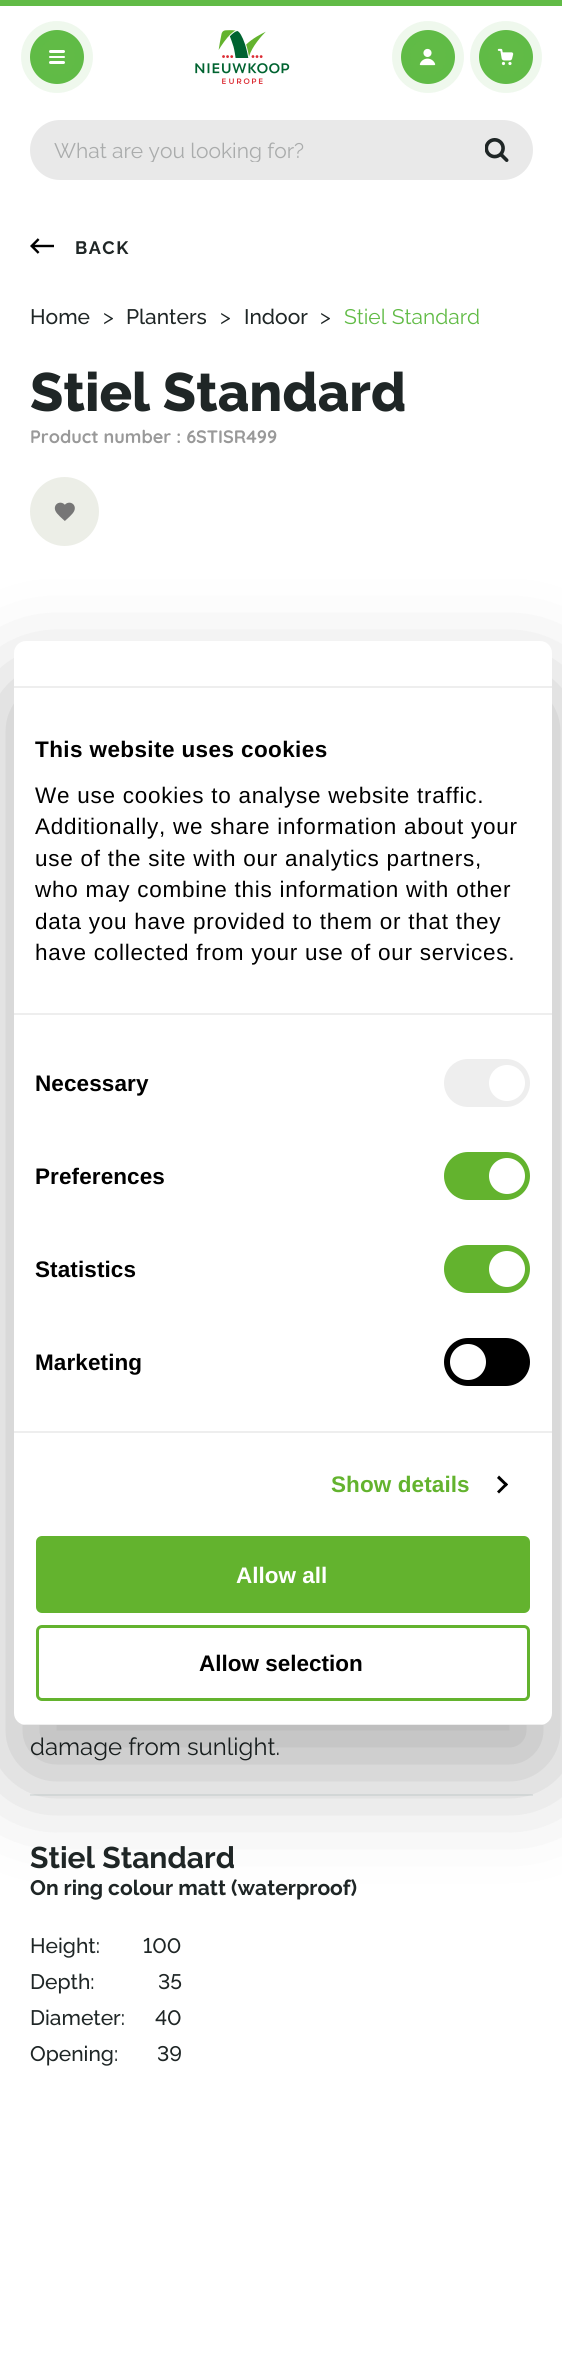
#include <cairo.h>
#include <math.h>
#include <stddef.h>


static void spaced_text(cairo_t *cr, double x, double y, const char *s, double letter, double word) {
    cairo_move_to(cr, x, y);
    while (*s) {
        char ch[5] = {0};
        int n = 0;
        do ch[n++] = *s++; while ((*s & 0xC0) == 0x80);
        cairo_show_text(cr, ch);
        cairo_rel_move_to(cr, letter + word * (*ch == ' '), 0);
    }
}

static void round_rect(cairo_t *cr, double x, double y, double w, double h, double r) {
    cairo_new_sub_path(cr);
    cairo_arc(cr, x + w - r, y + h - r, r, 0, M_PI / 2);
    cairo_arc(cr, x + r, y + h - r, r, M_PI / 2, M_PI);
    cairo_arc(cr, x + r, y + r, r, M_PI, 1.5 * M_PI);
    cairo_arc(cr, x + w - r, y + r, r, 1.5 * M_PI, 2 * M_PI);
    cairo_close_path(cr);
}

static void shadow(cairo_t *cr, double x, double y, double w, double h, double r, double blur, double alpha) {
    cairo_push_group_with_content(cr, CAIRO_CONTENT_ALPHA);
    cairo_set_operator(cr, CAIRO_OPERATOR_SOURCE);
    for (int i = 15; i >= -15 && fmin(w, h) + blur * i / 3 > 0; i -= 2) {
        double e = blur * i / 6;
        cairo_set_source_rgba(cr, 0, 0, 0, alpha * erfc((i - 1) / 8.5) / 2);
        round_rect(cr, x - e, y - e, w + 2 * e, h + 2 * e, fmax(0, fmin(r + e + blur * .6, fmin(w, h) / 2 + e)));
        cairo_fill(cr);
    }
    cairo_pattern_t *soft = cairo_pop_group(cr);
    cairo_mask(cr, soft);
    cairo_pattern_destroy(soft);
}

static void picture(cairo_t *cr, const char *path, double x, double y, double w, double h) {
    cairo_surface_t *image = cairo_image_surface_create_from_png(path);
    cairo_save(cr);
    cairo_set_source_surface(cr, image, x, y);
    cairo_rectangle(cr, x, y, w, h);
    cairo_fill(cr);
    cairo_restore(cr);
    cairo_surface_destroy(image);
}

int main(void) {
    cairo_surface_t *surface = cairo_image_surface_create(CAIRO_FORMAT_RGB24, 562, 2365);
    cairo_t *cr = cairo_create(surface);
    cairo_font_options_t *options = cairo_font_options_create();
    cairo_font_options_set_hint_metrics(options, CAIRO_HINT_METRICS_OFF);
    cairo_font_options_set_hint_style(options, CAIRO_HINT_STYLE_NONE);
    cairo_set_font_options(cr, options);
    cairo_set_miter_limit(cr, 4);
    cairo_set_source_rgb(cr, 1, 1, 1);
    cairo_paint(cr);
    cairo_set_source_rgb(cr, 0.38, 0.733, 0.275);
    cairo_rectangle(cr, 0, 0, 562, 6);
    cairo_fill(cr);
    cairo_arc(cr, 57, 57, 27, 0, 2 * M_PI);
    cairo_fill(cr);
    cairo_arc(cr, 57, 57, 22.5, 0, 2 * M_PI);
    cairo_set_source_rgba(cr, 0.38, 0.733, 0.275, 0.1);
    cairo_set_line_width(cr, 9);
    cairo_stroke(cr);
    cairo_arc(cr, 57, 57, 31.5, 0, 2 * M_PI);
    cairo_stroke(cr);
    cairo_set_source_rgb(cr, 1, 1, 1);
    round_rect(cr, 49, 50, 16, 3, 1.5);
    cairo_fill(cr);
    round_rect(cr, 49, 56, 16, 2, 1);
    cairo_fill(cr);
    round_rect(cr, 49, 61, 16, 3, 1.5);
    cairo_fill(cr);
    picture(cr, "img1.png", 195, 30, 95, 54);
    cairo_set_source_rgb(cr, 0.38, 0.733, 0.275);
    cairo_arc(cr, 428, 57, 27, 0, 2 * M_PI);
    cairo_fill(cr);
    cairo_arc(cr, 428, 57, 22.5, 0, 2 * M_PI);
    cairo_set_source_rgba(cr, 0.38, 0.733, 0.275, 0.1);
    cairo_stroke(cr);
    cairo_arc(cr, 428, 57, 31.5, 0, 2 * M_PI);
    cairo_stroke(cr);
    picture(cr, "img2.png", 419, 48, 17, 18);
    cairo_set_source_rgb(cr, 0.38, 0.733, 0.275);
    cairo_arc(cr, 506, 57, 27, 0, 2 * M_PI);
    cairo_fill(cr);
    cairo_arc(cr, 506, 57, 22.5, 0, 2 * M_PI);
    cairo_set_source_rgba(cr, 0.38, 0.733, 0.275, 0.1);
    cairo_stroke(cr);
    cairo_arc(cr, 506, 57, 31.5, 0, 2 * M_PI);
    cairo_stroke(cr);
    picture(cr, "img3.png", 497, 48, 17, 18);
    cairo_set_source_rgb(cr, 0.914, 0.914, 0.914);
    round_rect(cr, 30, 120, 503, 60, 30);
    cairo_fill(cr);
    cairo_save(cr);
    cairo_rectangle(cr, 54, 138, 395, 24);
    cairo_clip(cr);
    cairo_select_font_face(cr, "Raleway", CAIRO_FONT_SLANT_NORMAL, CAIRO_FONT_WEIGHT_NORMAL);
    cairo_set_font_size(cr, 21);
    cairo_set_source_rgb(cr, 0.667, 0.675, 0.675);
    cairo_move_to(cr, 54, 158);
    cairo_show_text(cr, "What are you looking for?");
    cairo_restore(cr);
    picture(cr, "img4.png", 485, 138, 24, 24);
    picture(cr, "img5.png", 30, 238, 24, 16);
    cairo_select_font_face(cr, "Raleway", CAIRO_FONT_SLANT_NORMAL, CAIRO_FONT_WEIGHT_BOLD);
    cairo_set_font_size(cr, 18);
    cairo_set_source_rgb(cr, 0.122, 0.149, 0.149);
    spaced_text(cr, 75, 254, "BACK", 1.5, 0);
    cairo_select_font_face(cr, "Raleway Medium", CAIRO_FONT_SLANT_NORMAL, CAIRO_FONT_WEIGHT_NORMAL);
    cairo_set_font_size(cr, 21);
    cairo_move_to(cr, 30, 324);
    cairo_show_text(cr, "Home");
    cairo_select_font_face(cr, "Raleway", CAIRO_FONT_SLANT_NORMAL, CAIRO_FONT_WEIGHT_NORMAL);
    cairo_move_to(cr, 103, 324);
    cairo_show_text(cr, ">");
    cairo_select_font_face(cr, "Raleway Medium", CAIRO_FONT_SLANT_NORMAL, CAIRO_FONT_WEIGHT_NORMAL);
    cairo_move_to(cr, 126, 324);
    cairo_show_text(cr, "Planters");
    cairo_select_font_face(cr, "Raleway", CAIRO_FONT_SLANT_NORMAL, CAIRO_FONT_WEIGHT_NORMAL);
    cairo_move_to(cr, 220, 324);
    cairo_show_text(cr, ">");
    cairo_select_font_face(cr, "Raleway Medium", CAIRO_FONT_SLANT_NORMAL, CAIRO_FONT_WEIGHT_NORMAL);
    cairo_move_to(cr, 244, 324);
    cairo_show_text(cr, "Indoor");
    cairo_select_font_face(cr, "Raleway", CAIRO_FONT_SLANT_NORMAL, CAIRO_FONT_WEIGHT_NORMAL);
    cairo_move_to(cr, 320, 324);
    cairo_show_text(cr, ">");
    cairo_set_source_rgb(cr, 0.38, 0.733, 0.275);
    cairo_move_to(cr, 344, 324);
    cairo_show_text(cr, "Stiel Standard");
    cairo_select_font_face(cr, "Raleway ExtraBold", CAIRO_FONT_SLANT_NORMAL, CAIRO_FONT_WEIGHT_NORMAL);
    cairo_set_font_size(cr, 54);
    cairo_set_source_rgb(cr, 0.122, 0.149, 0.149);
    cairo_move_to(cr, 30, 411);
    cairo_show_text(cr, "Stiel Standard");
    cairo_select_font_face(cr, "Quicksand", CAIRO_FONT_SLANT_NORMAL, CAIRO_FONT_WEIGHT_BOLD);
    cairo_set_font_size(cr, 18);
    cairo_set_source_rgb(cr, 0.6, 0.6, 0.6);
    cairo_move_to(cr, 30, 443);
    cairo_show_text(cr, "Product number : 6STISR499");
    cairo_set_source_rgb(cr, 0.922, 0.933, 0.906);
    cairo_new_path(cr);
    cairo_arc(cr, 64.5, 511.5, 34.5, 0, 2 * M_PI);
    cairo_fill(cr);
    picture(cr, "img6.png", 54, 502, 21, 19);
    cairo_set_source_rgb(cr, 0.925, 0.941, 0.941);
    cairo_rectangle(cr, 30, 1794, 503, 2);
    cairo_fill(cr);
    cairo_select_font_face(cr, "Raleway", CAIRO_FONT_SLANT_NORMAL, CAIRO_FONT_WEIGHT_NORMAL);
    cairo_set_font_size(cr, 24);
    cairo_set_source_rgb(cr, 0.122, 0.149, 0.149);
    cairo_move_to(cr, 30, 1755);
    cairo_show_text(cr, "damage from sunlight.");
    cairo_select_font_face(cr, "Raleway", CAIRO_FONT_SLANT_NORMAL, CAIRO_FONT_WEIGHT_BOLD);
    cairo_set_font_size(cr, 30);
    cairo_move_to(cr, 30, 1868);
    cairo_show_text(cr, "Stiel Standard");
    cairo_set_font_size(cr, 21);
    cairo_move_to(cr, 30, 1895);
    cairo_show_text(cr, "On ring colour matt (waterproof)");
    cairo_select_font_face(cr, "Raleway Medium", CAIRO_FONT_SLANT_NORMAL, CAIRO_FONT_WEIGHT_NORMAL);
    cairo_move_to(cr, 30, 1953);
    cairo_show_text(cr, "Height:");
    cairo_select_font_face(cr, "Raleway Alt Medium", CAIRO_FONT_SLANT_NORMAL, CAIRO_FONT_WEIGHT_NORMAL);
    cairo_move_to(cr, 143, 1953);
    cairo_show_text(cr, "100");
    cairo_select_font_face(cr, "Raleway Medium", CAIRO_FONT_SLANT_NORMAL, CAIRO_FONT_WEIGHT_NORMAL);
    cairo_move_to(cr, 30, 1989);
    cairo_show_text(cr, "Depth:");
    cairo_select_font_face(cr, "Raleway Alt Medium", CAIRO_FONT_SLANT_NORMAL, CAIRO_FONT_WEIGHT_NORMAL);
    cairo_move_to(cr, 158, 1989);
    cairo_show_text(cr, "35");
    cairo_select_font_face(cr, "Raleway Medium", CAIRO_FONT_SLANT_NORMAL, CAIRO_FONT_WEIGHT_NORMAL);
    cairo_move_to(cr, 30, 2025);
    cairo_show_text(cr, "Diameter:");
    cairo_select_font_face(cr, "Raleway Alt Medium", CAIRO_FONT_SLANT_NORMAL, CAIRO_FONT_WEIGHT_NORMAL);
    cairo_move_to(cr, 155, 2025);
    cairo_show_text(cr, "40");
    cairo_select_font_face(cr, "Raleway Medium", CAIRO_FONT_SLANT_NORMAL, CAIRO_FONT_WEIGHT_NORMAL);
    cairo_move_to(cr, 30, 2061);
    cairo_show_text(cr, "Opening:");
    cairo_select_font_face(cr, "Raleway Alt Medium", CAIRO_FONT_SLANT_NORMAL, CAIRO_FONT_WEIGHT_NORMAL);
    cairo_move_to(cr, 157, 2061);
    cairo_show_text(cr, "39");
    cairo_set_source_rgb(cr, 0, 0, 0);
    shadow(cr, 14, 689, 538, 1084, 12, 51, 0.3);
    cairo_set_source_rgb(cr, 1, 1, 1);
    round_rect(cr, 14, 641, 538, 1084, 12);
    cairo_fill(cr);
    cairo_set_source_rgb(cr, 0.933, 0.933, 0.933);
    cairo_rectangle(cr, 14, 686, 538, 2);
    cairo_fill(cr);
    cairo_rectangle(cr, 14, 1013, 538, 2);
    cairo_fill(cr);
    cairo_select_font_face(cr, "Liberation Sans", CAIRO_FONT_SLANT_NORMAL, CAIRO_FONT_WEIGHT_BOLD);
    cairo_set_font_size(cr, 22.5);
    cairo_set_source_rgb(cr, 0, 0, 0);
    spaced_text(cr, 35, 757, "This website uses cookies", 0.4, 0);
    cairo_select_font_face(cr, "Liberation Sans", CAIRO_FONT_SLANT_NORMAL, CAIRO_FONT_WEIGHT_NORMAL);
    spaced_text(cr, 35, 803, "We use cookies to analyse website traffic.", 0.75, 0);
    spaced_text(cr, 35, 834, "Additionally, we share information about your", 0.75, 0);
    spaced_text(cr, 35, 866, "use of the site with our analytics partners,", 0.75, 0);
    spaced_text(cr, 35, 897, "who may combine this information with other", 0.75, 0);
    spaced_text(cr, 35, 929, "data you have provided to them or that they", 0.75, 0);
    spaced_text(cr, 35, 960, "have collected from your use of our services.", 0.75, 0);
    cairo_set_source_rgb(cr, 0.933, 0.933, 0.933);
    cairo_rectangle(cr, 14, 1431, 538, 2);
    cairo_fill(cr);
    cairo_select_font_face(cr, "Liberation Sans", CAIRO_FONT_SLANT_NORMAL, CAIRO_FONT_WEIGHT_BOLD);
    cairo_set_source_rgb(cr, 0, 0, 0);
    spaced_text(cr, 35, 1091, "Necessary", 0.1, 0);
    cairo_set_source_rgb(cr, 0.933, 0.933, 0.933);
    round_rect(cr, 444, 1059, 86, 48, 24);
    cairo_fill(cr);
    cairo_set_source_rgb(cr, 1, 1, 1);
    cairo_arc(cr, 507, 1083, 18, 0, 2 * M_PI);
    cairo_fill(cr);
    cairo_set_source_rgb(cr, 0, 0, 0);
    spaced_text(cr, 35, 1184, "Preferences", 0.1, 0);
    cairo_set_source_rgb(cr, 0.388, 0.702, 0.18);
    round_rect(cr, 444, 1152, 86, 48, 24);
    cairo_fill(cr);
    cairo_set_source_rgb(cr, 1, 1, 1);
    cairo_arc(cr, 507, 1176, 18, 0, 2 * M_PI);
    cairo_fill(cr);
    cairo_set_source_rgb(cr, 0, 0, 0);
    spaced_text(cr, 35, 1277, "Statistics", 0.1, 0);
    cairo_set_source_rgb(cr, 0.388, 0.702, 0.18);
    round_rect(cr, 444, 1245, 86, 48, 24);
    cairo_fill(cr);
    cairo_set_source_rgb(cr, 1, 1, 1);
    cairo_arc(cr, 507, 1269, 18, 0, 2 * M_PI);
    cairo_fill(cr);
    cairo_set_source_rgb(cr, 0, 0, 0);
    spaced_text(cr, 35, 1370, "Marketing", 0.1, 0);
    round_rect(cr, 444, 1338, 86, 48, 24);
    cairo_fill(cr);
    cairo_set_source_rgb(cr, 1, 1, 1);
    cairo_arc(cr, 468, 1362, 18, 0, 2 * M_PI);
    cairo_fill(cr);
    cairo_set_source_rgb(cr, 0.388, 0.702, 0.18);
    spaced_text(cr, 331, 1492, "Show details", 0.1, 0);
    cairo_set_source_rgb(cr, 0, 0, 0);
    cairo_new_path(cr);
    cairo_move_to(cr, 499, 1475.5);
    cairo_line_to(cr, 508, 1484.5);
    cairo_line_to(cr, 506, 1486.5);
    cairo_line_to(cr, 497, 1478);
    cairo_close_path(cr);
    cairo_fill(cr);
    cairo_new_path(cr);
    cairo_move_to(cr, 506, 1482.5);
    cairo_line_to(cr, 508, 1484.5);
    cairo_line_to(cr, 499, 1493.5);
    cairo_line_to(cr, 497, 1491.5);
    cairo_close_path(cr);
    cairo_fill(cr);
    cairo_save(cr);
    round_rect(cr, 14, 641, 538, 1084, 12);
    cairo_clip(cr);
    cairo_set_source_rgb(cr, 0.933, 0.933, 0.933);
    cairo_rectangle(cr, 14, 1724, 538, 1);
    cairo_fill(cr);
    cairo_restore(cr);
    cairo_set_source_rgb(cr, 0.388, 0.702, 0.18);
    round_rect(cr, 37.5, 1537.5, 491, 74, 4.5);
    cairo_fill_preserve(cr);
    cairo_set_line_width(cr, 3);
    cairo_stroke(cr);
    cairo_set_source_rgb(cr, 1, 1, 1);
    cairo_move_to(cr, 236, 1583);
    cairo_show_text(cr, "Allow all");
    round_rect(cr, 37.5, 1626.5, 491, 73, 4.5);
    cairo_set_source_rgb(cr, 0.388, 0.702, 0.18);
    cairo_stroke(cr);
    cairo_set_source_rgb(cr, 0, 0, 0);
    cairo_move_to(cr, 199, 1671);
    cairo_show_text(cr, "Allow selection");
    cairo_surface_write_to_png(surface, "page.png");
    cairo_font_options_destroy(options);
    cairo_destroy(cr);
    cairo_surface_destroy(surface);
    return 0;
}
